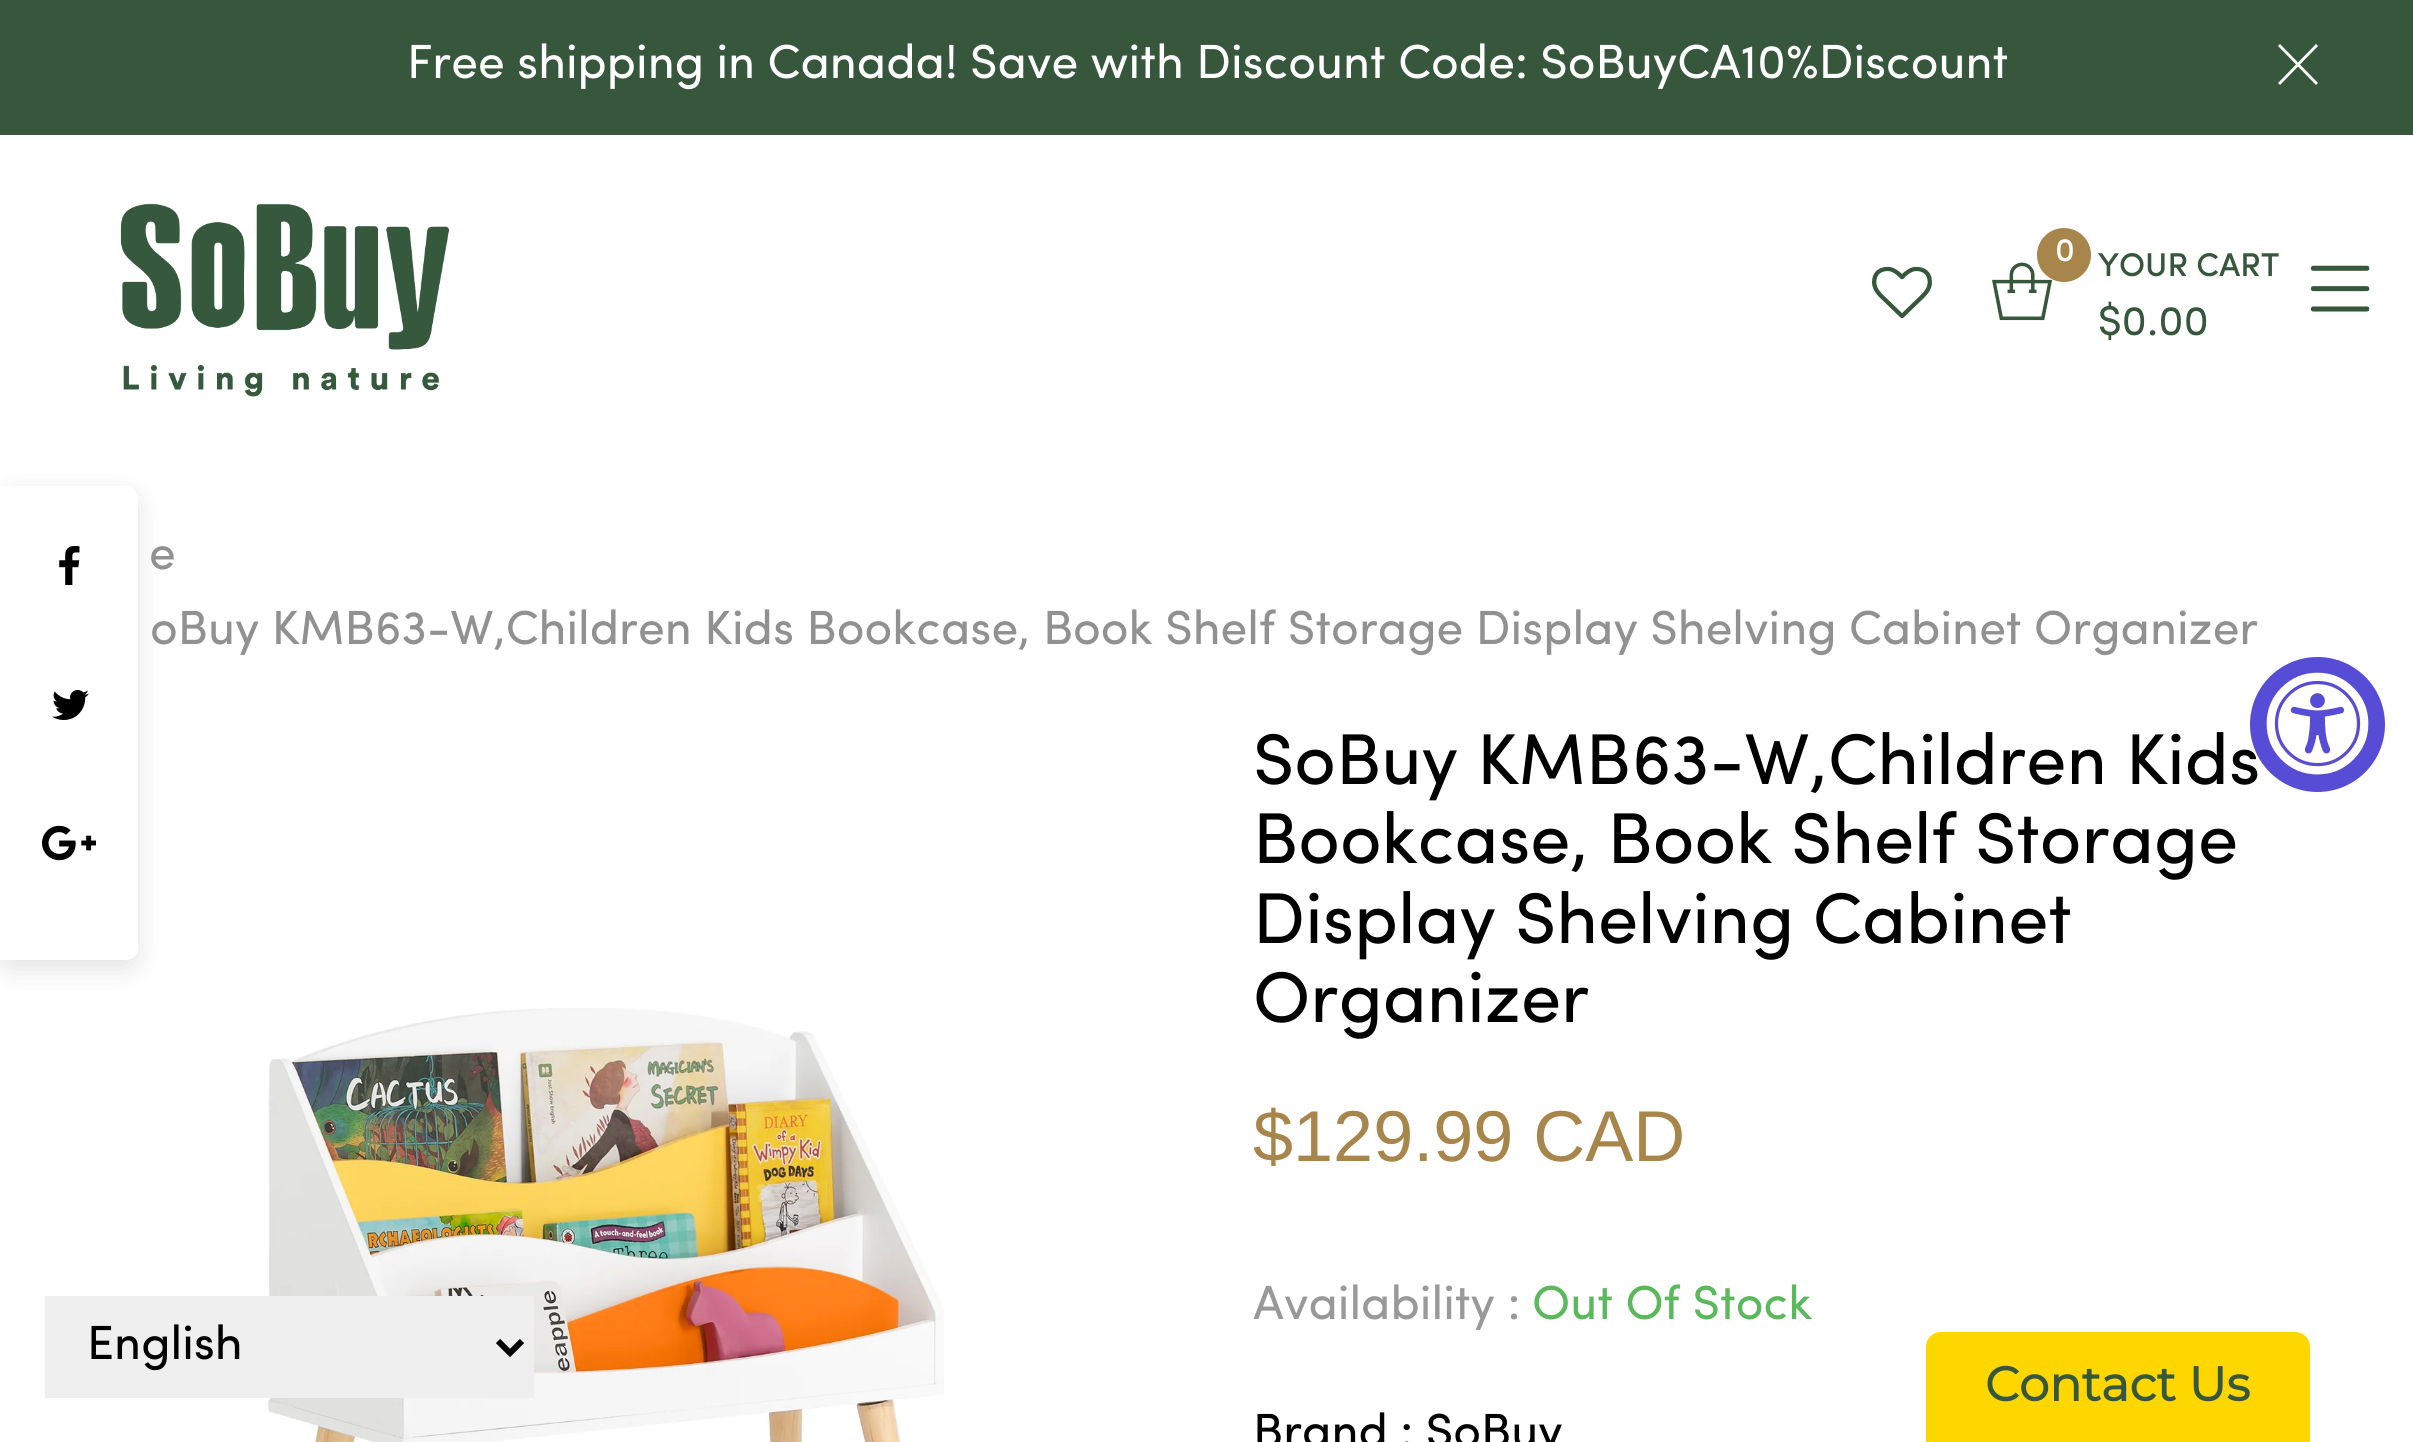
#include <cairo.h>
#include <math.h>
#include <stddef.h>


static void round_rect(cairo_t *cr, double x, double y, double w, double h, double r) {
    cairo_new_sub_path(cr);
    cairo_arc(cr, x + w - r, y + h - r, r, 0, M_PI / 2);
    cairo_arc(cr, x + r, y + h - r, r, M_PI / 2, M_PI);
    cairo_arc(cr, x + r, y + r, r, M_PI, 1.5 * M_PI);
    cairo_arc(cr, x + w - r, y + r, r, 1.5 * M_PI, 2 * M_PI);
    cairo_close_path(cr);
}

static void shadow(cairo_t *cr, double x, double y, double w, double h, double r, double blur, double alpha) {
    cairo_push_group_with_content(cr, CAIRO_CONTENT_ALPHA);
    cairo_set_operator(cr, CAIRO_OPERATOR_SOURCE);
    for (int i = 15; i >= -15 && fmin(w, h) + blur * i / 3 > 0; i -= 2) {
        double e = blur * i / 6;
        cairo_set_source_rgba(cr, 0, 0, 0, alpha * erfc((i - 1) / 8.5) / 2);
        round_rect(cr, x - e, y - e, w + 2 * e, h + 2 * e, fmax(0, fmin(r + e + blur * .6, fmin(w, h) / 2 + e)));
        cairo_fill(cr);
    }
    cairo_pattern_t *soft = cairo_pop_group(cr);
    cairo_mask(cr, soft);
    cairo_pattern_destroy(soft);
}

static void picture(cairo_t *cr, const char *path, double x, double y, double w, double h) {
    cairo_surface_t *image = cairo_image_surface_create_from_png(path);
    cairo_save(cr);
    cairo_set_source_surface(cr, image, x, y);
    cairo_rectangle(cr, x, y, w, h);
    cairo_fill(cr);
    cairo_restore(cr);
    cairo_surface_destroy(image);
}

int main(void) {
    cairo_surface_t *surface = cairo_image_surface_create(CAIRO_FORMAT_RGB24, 2413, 1442);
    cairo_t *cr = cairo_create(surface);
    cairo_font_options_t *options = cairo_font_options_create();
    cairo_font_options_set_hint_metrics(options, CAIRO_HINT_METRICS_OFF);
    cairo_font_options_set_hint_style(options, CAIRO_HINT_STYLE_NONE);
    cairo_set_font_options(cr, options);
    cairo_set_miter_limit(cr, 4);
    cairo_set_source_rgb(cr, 1, 1, 1);
    cairo_paint(cr);
    cairo_set_source_rgb(cr, 0.212, 0.341, 0.231);
    cairo_rectangle(cr, 0, 0, 2413, 135);
    cairo_fill(cr);
    cairo_select_font_face(cr, "Sofia", CAIRO_FONT_SLANT_NORMAL, CAIRO_FONT_WEIGHT_NORMAL);
    cairo_set_font_size(cr, 48);
    cairo_set_source_rgb(cr, 1, 1, 1);
    cairo_move_to(cr, 407, 78);
    cairo_show_text(cr, "Free shipping in Canada! Save with Discount Code: SoBuyCA10%Discount");
    cairo_new_path(cr);
    cairo_move_to(cr, 2280, 44);
    cairo_line_to(cr, 2318, 83);
    cairo_line_to(cr, 2316, 85);
    cairo_line_to(cr, 2278, 46);
    cairo_close_path(cr);
    cairo_fill(cr);
    cairo_new_path(cr);
    cairo_move_to(cr, 2278, 83);
    cairo_line_to(cr, 2316, 44);
    cairo_line_to(cr, 2318, 46);
    cairo_line_to(cr, 2280, 85);
    cairo_close_path(cr);
    cairo_fill(cr);
    picture(cr, "img1.png", 120, 203, 330, 194);
    picture(cr, "img2.png", 1872, 266, 60, 53);
    picture(cr, "img3.png", 1992, 262, 60, 59);
    cairo_set_source_rgb(cr, 0.659, 0.522, 0.29);
    cairo_arc(cr, 2064, 255, 27, 0, 2 * M_PI);
    cairo_fill(cr);
    cairo_select_font_face(cr, "Sofia Medium", CAIRO_FONT_SLANT_NORMAL, CAIRO_FONT_WEIGHT_NORMAL);
    cairo_set_font_size(cr, 33);
    cairo_set_source_rgb(cr, 1, 1, 1);
    cairo_move_to(cr, 2055, 261);
    cairo_show_text(cr, "0");
    cairo_set_source_rgb(cr, 0.212, 0.341, 0.231);
    cairo_move_to(cr, 2098, 276);
    cairo_show_text(cr, "YOUR CART");
    cairo_select_font_face(cr, "Sofia", CAIRO_FONT_SLANT_NORMAL, CAIRO_FONT_WEIGHT_NORMAL);
    cairo_set_font_size(cr, 42);
    cairo_move_to(cr, 2098, 335);
    cairo_show_text(cr, "$0.00");
    picture(cr, "img4.png", 2310, 265, 60, 47);
    picture(cr, "img8.png", 45, 1008, 899, 434);
    cairo_set_source_rgb(cr, 0, 0, 0);
    shadow(cr, 0, 495, 138, 474, 12, 13.5, 0.11);
    cairo_set_source_rgb(cr, 1, 1, 1);
    cairo_new_path(cr);
    cairo_move_to(cr, 0, 486);
    cairo_line_to(cr, 126, 486);
    cairo_curve_to(cr, 132.5, 486, 138, 491.5, 138, 498);
    cairo_line_to(cr, 138, 948);
    cairo_curve_to(cr, 138, 954.5, 132.5, 960, 126, 960);
    cairo_line_to(cr, 0, 960);
    cairo_close_path(cr);
    cairo_fill(cr);
    picture(cr, "img5.png", 59, 546, 21, 39);
    picture(cr, "img6.png", 52, 690, 37, 30);
    picture(cr, "img7.png", 42, 825, 54, 36);
    cairo_set_font_size(cr, 48);
    cairo_set_source_rgb(cr, 0.569, 0.569, 0.569);
    cairo_move_to(cr, 149, 569);
    cairo_show_text(cr, "e");
    cairo_move_to(cr, 150, 644);
    cairo_show_text(cr, "oBuy KMB63-W,Children Kids Bookcase, Book Shelf Storage Display Shelving Cabinet Organizer");
    cairo_set_font_size(cr, 72);
    cairo_set_source_rgb(cr, 0, 0, 0);
    cairo_move_to(cr, 1253, 784);
    cairo_show_text(cr, "SoBuy KMB63-W,Children Kids");
    cairo_move_to(cr, 1253, 863);
    cairo_show_text(cr, "Bookcase, Book Shelf Storage");
    cairo_move_to(cr, 1253, 943);
    cairo_show_text(cr, "Display Shelving Cabinet");
    cairo_move_to(cr, 1253, 1022);
    cairo_show_text(cr, "Organizer");
    cairo_select_font_face(cr, "Liberation Sans", CAIRO_FONT_SLANT_NORMAL, CAIRO_FONT_WEIGHT_NORMAL);
    cairo_set_source_rgb(cr, 0.659, 0.522, 0.29);
    cairo_move_to(cr, 1253, 1161);
    cairo_show_text(cr, "$129.99 CAD");
    cairo_select_font_face(cr, "Sofia", CAIRO_FONT_SLANT_NORMAL, CAIRO_FONT_WEIGHT_NORMAL);
    cairo_set_font_size(cr, 48);
    cairo_set_source_rgb(cr, 0.6, 0.6, 0.6);
    cairo_move_to(cr, 1253, 1319);
    cairo_show_text(cr, "Availability :");
    cairo_set_source_rgb(cr, 0.361, 0.722, 0.361);
    cairo_move_to(cr, 1532, 1319);
    cairo_show_text(cr, "Out Of Stock");
    cairo_set_source_rgb(cr, 0, 0, 0);
    cairo_move_to(cr, 1253, 1447);
    cairo_show_text(cr, "Brand : SoBuy");
    cairo_set_source_rgb(cr, 0.341, 0.298, 0.835);
    cairo_new_path(cr);
    cairo_arc(cr, 2317.5, 724.5, 67.5, 0, 2 * M_PI);
    cairo_fill(cr);
    picture(cr, "img9.png", 2266, 672, 103, 103);
    cairo_set_source_rgb(cr, 0.937, 0.937, 0.937);
    cairo_rectangle(cr, 45, 1296, 489, 102);
    cairo_fill(cr);
    cairo_new_path(cr);
    cairo_move_to(cr, 498, 1341);
    cairo_line_to(cr, 510, 1353);
    cairo_line_to(cr, 522, 1341);
    cairo_set_source_rgb(cr, 0, 0, 0);
    cairo_set_line_width(cr, 6);
    cairo_stroke(cr);
    cairo_move_to(cr, 87, 1359);
    cairo_show_text(cr, "English");
    cairo_set_source_rgb(cr, 1, 0.843, 0);
    cairo_new_path(cr);
    cairo_move_to(cr, 1941, 1332);
    cairo_line_to(cr, 2295, 1332);
    cairo_curve_to(cr, 2303.5, 1332, 2310, 1338.5, 2310, 1347);
    cairo_line_to(cr, 2310, 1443);
    cairo_line_to(cr, 1926, 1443);
    cairo_line_to(cr, 1926, 1347);
    cairo_curve_to(cr, 1926, 1338.5, 1932.5, 1332, 1941, 1332);
    cairo_close_path(cr);
    cairo_fill(cr);
    cairo_select_font_face(cr, "Montserrat", CAIRO_FONT_SLANT_NORMAL, CAIRO_FONT_WEIGHT_BOLD);
    cairo_set_source_rgb(cr, 0.212, 0.341, 0.231);
    cairo_move_to(cr, 1985, 1401);
    cairo_show_text(cr, "Contact Us");
    cairo_surface_write_to_png(surface, "page.png");
    cairo_font_options_destroy(options);
    cairo_destroy(cr);
    cairo_surface_destroy(surface);
    return 0;
}
